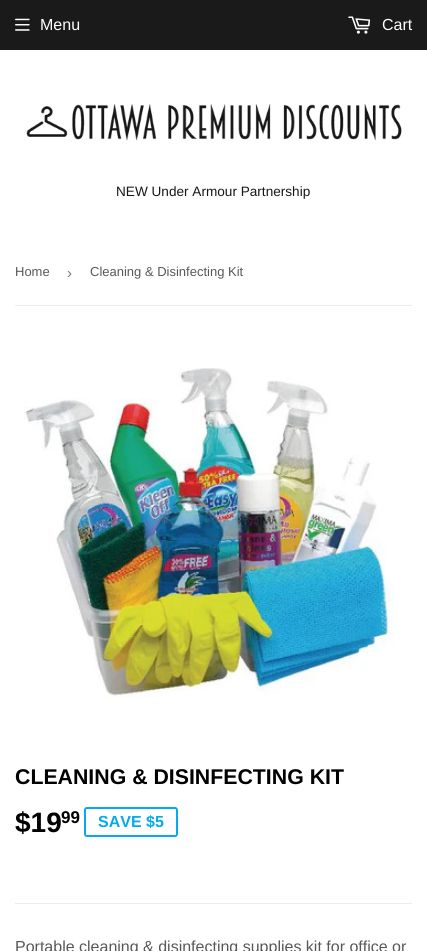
#include <cairo.h>
#include <math.h>
#include <stddef.h>


static void round_rect(cairo_t *cr, double x, double y, double w, double h, double r) {
    cairo_new_sub_path(cr);
    cairo_arc(cr, x + w - r, y + h - r, r, 0, M_PI / 2);
    cairo_arc(cr, x + r, y + h - r, r, M_PI / 2, M_PI);
    cairo_arc(cr, x + r, y + r, r, M_PI, 1.5 * M_PI);
    cairo_arc(cr, x + w - r, y + r, r, 1.5 * M_PI, 2 * M_PI);
    cairo_close_path(cr);
}

static void picture(cairo_t *cr, const char *path, double x, double y, double w, double h) {
    cairo_surface_t *image = cairo_image_surface_create_from_png(path);
    cairo_save(cr);
    cairo_set_source_surface(cr, image, x, y);
    cairo_rectangle(cr, x, y, w, h);
    cairo_fill(cr);
    cairo_restore(cr);
    cairo_surface_destroy(image);
}

int main(void) {
    cairo_surface_t *surface = cairo_image_surface_create(CAIRO_FORMAT_RGB24, 427, 951);
    cairo_t *cr = cairo_create(surface);
    cairo_font_options_t *options = cairo_font_options_create();
    cairo_font_options_set_hint_metrics(options, CAIRO_HINT_METRICS_OFF);
    cairo_font_options_set_hint_style(options, CAIRO_HINT_STYLE_NONE);
    cairo_set_font_options(cr, options);
    cairo_set_miter_limit(cr, 4);
    cairo_set_source_rgb(cr, 1, 1, 1);
    cairo_paint(cr);
    cairo_set_source_rgb(cr, 0.102, 0.102, 0.102);
    cairo_rectangle(cr, 0, 0, 427, 50);
    cairo_fill(cr);
    picture(cr, "img1.png", 15, 18, 15, 13);
    cairo_select_font_face(cr, "Liberation Sans", CAIRO_FONT_SLANT_NORMAL, CAIRO_FONT_WEIGHT_NORMAL);
    cairo_set_font_size(cr, 16);
    cairo_set_source_rgb(cr, 1, 1, 1);
    cairo_move_to(cr, 40, 30);
    cairo_show_text(cr, "Menu");
    picture(cr, "img2.png", 348, 16, 23, 18);
    cairo_move_to(cr, 382, 30);
    cairo_show_text(cr, "Cart");
    picture(cr, "img3.png", 26, 104, 376, 37);
    cairo_set_font_size(cr, 13.6);
    cairo_set_source_rgb(cr, 0.09, 0.09, 0.09);
    cairo_move_to(cr, 116, 196);
    cairo_show_text(cr, "NEW Under Armour Partnership");
    cairo_set_source_rgb(cr, 0.925, 0.925, 0.925);
    cairo_rectangle(cr, 15, 305, 397, 1);
    cairo_fill(cr);
    cairo_set_font_size(cr, 13);
    cairo_set_source_rgb(cr, 0.345, 0.345, 0.345);
    cairo_move_to(cr, 15, 276);
    cairo_show_text(cr, "Home");
    cairo_set_font_size(cr, 15);
    cairo_set_source_rgb(cr, 0.463, 0.463, 0.463);
    cairo_move_to(cr, 67, 278);
    cairo_show_text(cr, "›");
    cairo_set_font_size(cr, 13);
    cairo_set_source_rgb(cr, 0.345, 0.345, 0.345);
    cairo_move_to(cr, 90, 276);
    cairo_show_text(cr, "Cleaning & Disinfecting Kit");
    picture(cr, "img4.png", 24, 368, 371, 330);
    cairo_select_font_face(cr, "Liberation Sans", CAIRO_FONT_SLANT_NORMAL, CAIRO_FONT_WEIGHT_BOLD);
    cairo_set_font_size(cr, 21.3);
    cairo_set_source_rgb(cr, 0, 0, 0);
    cairo_move_to(cr, 15, 784);
    cairo_show_text(cr, "CLEANING & DISINFECTING KIT");
    cairo_set_font_size(cr, 28);
    cairo_move_to(cr, 15, 832);
    cairo_show_text(cr, "$19");
    cairo_set_font_size(cr, 17);
    cairo_move_to(cr, 61, 823);
    cairo_show_text(cr, "99");
    round_rect(cr, 85, 808, 92, 28, 2);
    cairo_set_source_rgb(cr, 0.02, 0.663, 0.929);
    cairo_stroke(cr);
    cairo_set_font_size(cr, 16);
    cairo_move_to(cr, 98, 827);
    cairo_show_text(cr, "SAVE $5");
    cairo_set_source_rgb(cr, 0.925, 0.925, 0.925);
    cairo_rectangle(cr, 15, 903, 397, 1);
    cairo_fill(cr);
    cairo_select_font_face(cr, "Liberation Sans", CAIRO_FONT_SLANT_NORMAL, CAIRO_FONT_WEIGHT_NORMAL);
    cairo_set_source_rgb(cr, 0.345, 0.345, 0.345);
    cairo_move_to(cr, 15, 952);
    cairo_show_text(cr, "Portable cleaning & disinfecting supplies kit for office or");
    cairo_surface_write_to_png(surface, "page.png");
    cairo_font_options_destroy(options);
    cairo_destroy(cr);
    cairo_surface_destroy(surface);
    return 0;
}
